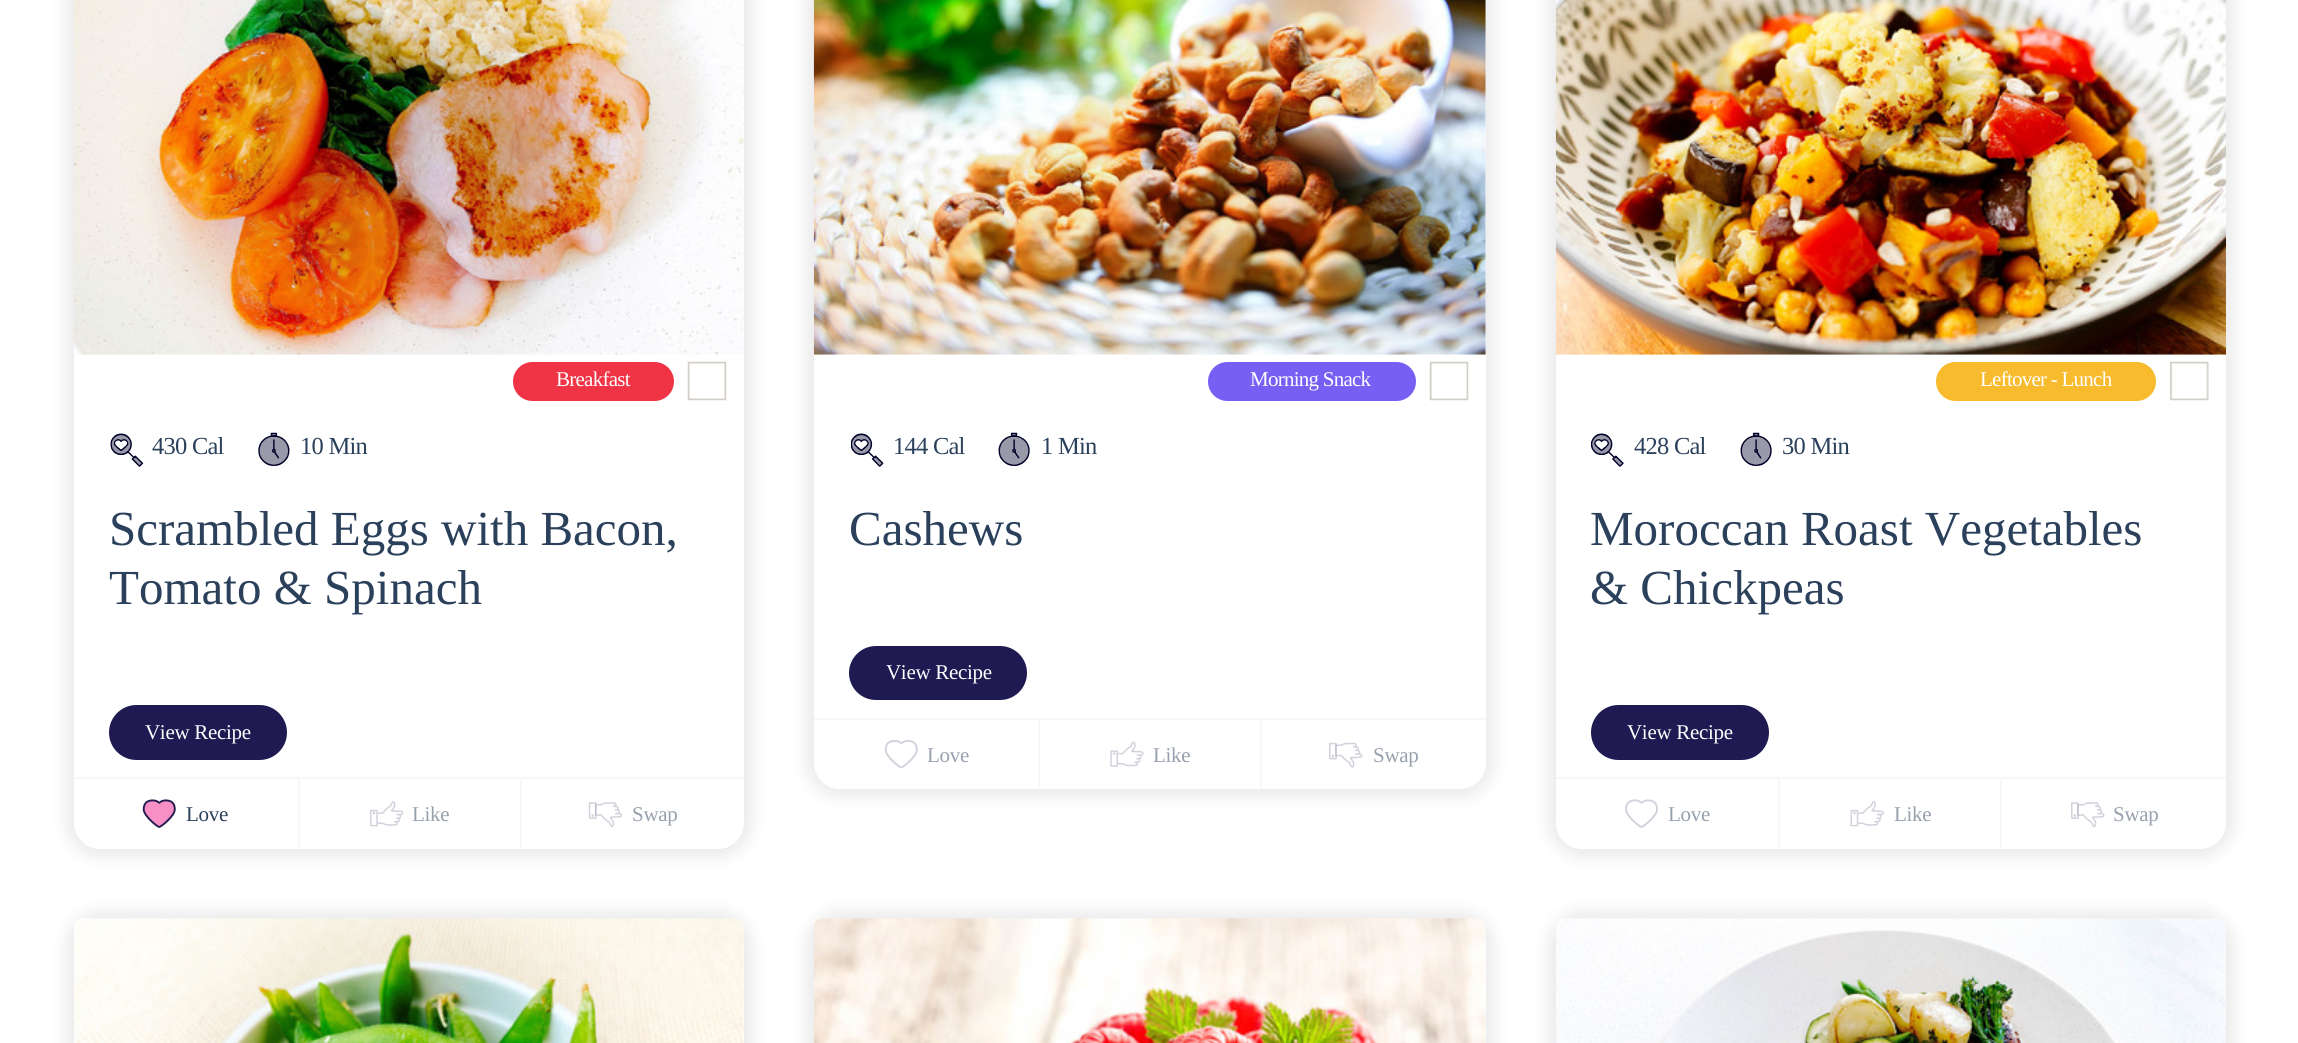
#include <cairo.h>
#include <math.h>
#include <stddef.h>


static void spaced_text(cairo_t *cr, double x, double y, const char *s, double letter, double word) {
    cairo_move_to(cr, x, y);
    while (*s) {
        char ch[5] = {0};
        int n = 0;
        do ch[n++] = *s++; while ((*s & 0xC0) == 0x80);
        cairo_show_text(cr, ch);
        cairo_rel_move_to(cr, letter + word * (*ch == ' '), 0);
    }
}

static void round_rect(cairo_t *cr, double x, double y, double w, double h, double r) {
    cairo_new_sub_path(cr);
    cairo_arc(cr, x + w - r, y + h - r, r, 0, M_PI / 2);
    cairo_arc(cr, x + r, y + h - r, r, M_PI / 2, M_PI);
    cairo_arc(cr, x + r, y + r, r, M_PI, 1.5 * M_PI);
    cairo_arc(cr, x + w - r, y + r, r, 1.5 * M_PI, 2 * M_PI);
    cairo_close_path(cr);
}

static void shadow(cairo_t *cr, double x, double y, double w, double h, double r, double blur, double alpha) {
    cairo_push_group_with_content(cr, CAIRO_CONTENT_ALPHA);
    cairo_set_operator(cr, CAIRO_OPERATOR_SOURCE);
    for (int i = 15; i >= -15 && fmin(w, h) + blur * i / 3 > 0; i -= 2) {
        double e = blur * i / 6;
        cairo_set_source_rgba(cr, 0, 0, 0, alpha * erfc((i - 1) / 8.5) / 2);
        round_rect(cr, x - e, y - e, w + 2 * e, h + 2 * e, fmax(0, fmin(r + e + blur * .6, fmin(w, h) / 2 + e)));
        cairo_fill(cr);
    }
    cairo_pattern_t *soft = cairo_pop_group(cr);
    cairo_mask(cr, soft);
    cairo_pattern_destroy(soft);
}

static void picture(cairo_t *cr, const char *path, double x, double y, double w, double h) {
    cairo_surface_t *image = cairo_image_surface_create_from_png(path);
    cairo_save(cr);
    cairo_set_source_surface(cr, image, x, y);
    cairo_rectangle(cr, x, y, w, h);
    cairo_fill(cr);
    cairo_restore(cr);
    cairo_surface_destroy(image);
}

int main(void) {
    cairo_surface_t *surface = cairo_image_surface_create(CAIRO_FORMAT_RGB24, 2298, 1043);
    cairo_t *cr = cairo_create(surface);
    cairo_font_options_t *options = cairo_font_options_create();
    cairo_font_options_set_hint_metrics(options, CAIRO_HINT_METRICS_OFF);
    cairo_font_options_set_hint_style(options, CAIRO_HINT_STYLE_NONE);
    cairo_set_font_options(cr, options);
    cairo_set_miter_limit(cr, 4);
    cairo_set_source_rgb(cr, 1, 1, 1);
    cairo_paint(cr);
    cairo_set_source_rgb(cr, 0.855, 0.855, 0.855);
    shadow(cr, 65, -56, 688, 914, 35, 7, 0.5);
    cairo_set_source_rgb(cr, 1, 1, 1);
    round_rect(cr, 74, -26, 670, 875, 26);
    cairo_fill(cr);
    picture(cr, "img1.png", 73, 0, 671, 355);
    cairo_set_source_rgb(cr, 0.941, 0.204, 0.275);
    round_rect(cr, 513, 362, 161, 39, 19.5);
    cairo_fill(cr);
    cairo_select_font_face(cr, "Liberation Serif", CAIRO_FONT_SLANT_NORMAL, CAIRO_FONT_WEIGHT_NORMAL);
    cairo_set_font_size(cr, 21);
    cairo_set_source_rgb(cr, 1, 1, 1);
    spaced_text(cr, 556, 386, "Breakfast", -0.75, 0);
    picture(cr, "img2.png", 687, 361, 40, 40);
    picture(cr, "img3.png", 110, 433, 34, 34);
    cairo_set_font_size(cr, 24.5);
    cairo_set_source_rgb(cr, 0.169, 0.251, 0.357);
    spaced_text(cr, 152, 454, "430 Cal", -0.75, 0);
    picture(cr, "img4.png", 258, 432, 32, 34);
    spaced_text(cr, 300, 454, "10 Min", -0.75, 0);
    cairo_set_font_size(cr, 49);
    cairo_move_to(cr, 109, 545);
    cairo_show_text(cr, "Scrambled Eggs with Bacon,");
    cairo_move_to(cr, 109, 604);
    cairo_show_text(cr, "Tomato & Spinach");
    cairo_set_source_rgb(cr, 0.122, 0.106, 0.322);
    round_rect(cr, 110, 706, 176, 53, 26.5);
    cairo_fill_preserve(cr);
    cairo_stroke(cr);
    cairo_set_font_size(cr, 21);
    cairo_set_source_rgb(cr, 1, 1, 1);
    spaced_text(cr, 145, 739, "View Recipe", -0.3, 0);
    cairo_set_source_rgb(cr, 0.965, 0.965, 0.965);
    cairo_rectangle(cr, 74, 777, 670, 2);
    cairo_fill(cr);
    picture(cr, "img5.png", 142, 799, 34, 29);
    cairo_set_source_rgb(cr, 0.169, 0.251, 0.357);
    spaced_text(cr, 186, 821, "Love", -0.3, 0);
    cairo_set_source_rgb(cr, 0.965, 0.965, 0.965);
    cairo_rectangle(cr, 520, 779, 2, 70);
    cairo_fill(cr);
    cairo_rectangle(cr, 298, 779, 2, 70);
    cairo_fill(cr);
    picture(cr, "img6.png", 370, 801, 34, 26);
    cairo_set_source_rgb(cr, 0.592, 0.627, 0.678);
    spaced_text(cr, 412, 821, "Like", -0.3, 0);
    picture(cr, "img7.png", 588, 802, 35, 25);
    spaced_text(cr, 632, 821, "Swap", -0.3, 0);
    cairo_set_source_rgb(cr, 0.855, 0.855, 0.855);
    shadow(cr, 805, -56, 690, 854, 35, 7, 0.5);
    cairo_set_source_rgb(cr, 1, 1, 1);
    round_rect(cr, 814, -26, 672, 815, 26);
    cairo_fill(cr);
    picture(cr, "img8.png", 813, 0, 673, 355);
    cairo_set_source_rgb(cr, 0.467, 0.373, 0.953);
    round_rect(cr, 1208, 362, 208, 39, 19.5);
    cairo_fill(cr);
    cairo_set_source_rgb(cr, 1, 1, 1);
    spaced_text(cr, 1250, 386, "Morning Snack", -0.75, 0);
    picture(cr, "img9.png", 1429, 361, 40, 40);
    picture(cr, "img10.png", 851, 433, 33, 34);
    cairo_set_font_size(cr, 24.5);
    cairo_set_source_rgb(cr, 0.169, 0.251, 0.357);
    spaced_text(cr, 893, 454, "144 Cal", -0.75, 0);
    picture(cr, "img11.png", 998, 432, 32, 34);
    spaced_text(cr, 1041, 454, "1 Min", -0.75, 0);
    cairo_set_font_size(cr, 49);
    cairo_move_to(cr, 849, 545);
    cairo_show_text(cr, "Cashews");
    cairo_set_source_rgb(cr, 0.122, 0.106, 0.322);
    round_rect(cr, 850, 647, 176, 52, 26);
    cairo_fill_preserve(cr);
    cairo_stroke(cr);
    cairo_set_font_size(cr, 21);
    cairo_set_source_rgb(cr, 1, 1, 1);
    spaced_text(cr, 886, 679, "View Recipe", -0.3, 0);
    cairo_set_source_rgb(cr, 0.965, 0.965, 0.965);
    cairo_rectangle(cr, 814, 718, 672, 2);
    cairo_fill(cr);
    picture(cr, "img12.png", 884, 740, 34, 29);
    cairo_set_source_rgb(cr, 0.592, 0.627, 0.678);
    spaced_text(cr, 927, 762, "Love", -0.3, 0);
    cairo_set_source_rgb(cr, 0.965, 0.965, 0.965);
    cairo_rectangle(cr, 1260, 719, 2, 70);
    cairo_fill(cr);
    cairo_rectangle(cr, 1038, 719, 2, 70);
    cairo_fill(cr);
    picture(cr, "img13.png", 1110, 741, 34, 26);
    cairo_set_source_rgb(cr, 0.592, 0.627, 0.678);
    spaced_text(cr, 1153, 762, "Like", -0.3, 0);
    picture(cr, "img14.png", 1329, 742, 34, 26);
    spaced_text(cr, 1373, 762, "Swap", -0.3, 0);
    cairo_set_source_rgb(cr, 0.855, 0.855, 0.855);
    shadow(cr, 1547, -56, 688, 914, 35, 7, 0.5);
    cairo_set_source_rgb(cr, 1, 1, 1);
    round_rect(cr, 1556, -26, 670, 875, 26);
    cairo_fill(cr);
    picture(cr, "img15.png", 1555, 0, 671, 355);
    cairo_set_source_rgb(cr, 0.969, 0.733, 0.18);
    round_rect(cr, 1936, 362, 220, 39, 19.5);
    cairo_fill(cr);
    cairo_set_source_rgb(cr, 1, 1, 1);
    spaced_text(cr, 1980, 386, "Leftover - Lunch", -0.75, 0);
    picture(cr, "img16.png", 2170, 361, 39, 40);
    picture(cr, "img17.png", 1591, 433, 33, 34);
    cairo_set_font_size(cr, 24.5);
    cairo_set_source_rgb(cr, 0.169, 0.251, 0.357);
    spaced_text(cr, 1634, 454, "428 Cal", -0.75, 0);
    picture(cr, "img18.png", 1740, 432, 32, 34);
    spaced_text(cr, 1782, 454, "30 Min", -0.75, 0);
    cairo_set_font_size(cr, 49);
    cairo_move_to(cr, 1590, 545);
    cairo_show_text(cr, "Moroccan Roast Vegetables");
    cairo_move_to(cr, 1590, 604);
    cairo_show_text(cr, "& Chickpeas");
    cairo_set_source_rgb(cr, 0.122, 0.106, 0.322);
    round_rect(cr, 1592, 706, 176, 53, 26.5);
    cairo_fill_preserve(cr);
    cairo_stroke(cr);
    cairo_set_font_size(cr, 21);
    cairo_set_source_rgb(cr, 1, 1, 1);
    spaced_text(cr, 1627, 739, "View Recipe", -0.3, 0);
    cairo_set_source_rgb(cr, 0.965, 0.965, 0.965);
    cairo_rectangle(cr, 1556, 777, 670, 2);
    cairo_fill(cr);
    picture(cr, "img19.png", 1625, 799, 33, 29);
    cairo_set_source_rgb(cr, 0.592, 0.627, 0.678);
    spaced_text(cr, 1668, 821, "Love", -0.3, 0);
    cairo_set_source_rgb(cr, 0.965, 0.965, 0.965);
    cairo_rectangle(cr, 2000, 779, 2, 70);
    cairo_fill(cr);
    cairo_rectangle(cr, 1778, 779, 2, 70);
    cairo_fill(cr);
    picture(cr, "img20.png", 1850, 801, 34, 26);
    cairo_set_source_rgb(cr, 0.592, 0.627, 0.678);
    spaced_text(cr, 1894, 821, "Like", -0.3, 0);
    picture(cr, "img21.png", 2071, 802, 34, 26);
    spaced_text(cr, 2113, 821, "Swap", -0.3, 0);
    cairo_set_source_rgb(cr, 0.855, 0.855, 0.855);
    shadow(cr, 65, 910, 688, 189, 35, 7, 0.5);
    cairo_set_source_rgb(cr, 1, 1, 1);
    round_rect(cr, 74, 919, 670, 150, 26);
    cairo_fill(cr);
    picture(cr, "img22.png", 74, 918, 670, 125);
    cairo_set_source_rgb(cr, 0.855, 0.855, 0.855);
    shadow(cr, 805, 910, 690, 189, 35, 7, 0.5);
    cairo_set_source_rgb(cr, 1, 1, 1);
    round_rect(cr, 814, 919, 672, 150, 26);
    cairo_fill(cr);
    picture(cr, "img23.png", 814, 918, 672, 125);
    cairo_set_source_rgb(cr, 0.855, 0.855, 0.855);
    shadow(cr, 1547, 910, 688, 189, 35, 7, 0.5);
    picture(cr, "img24.png", 1556, 918, 670, 125);
    cairo_surface_write_to_png(surface, "page.png");
    cairo_font_options_destroy(options);
    cairo_destroy(cr);
    cairo_surface_destroy(surface);
    return 0;
}
